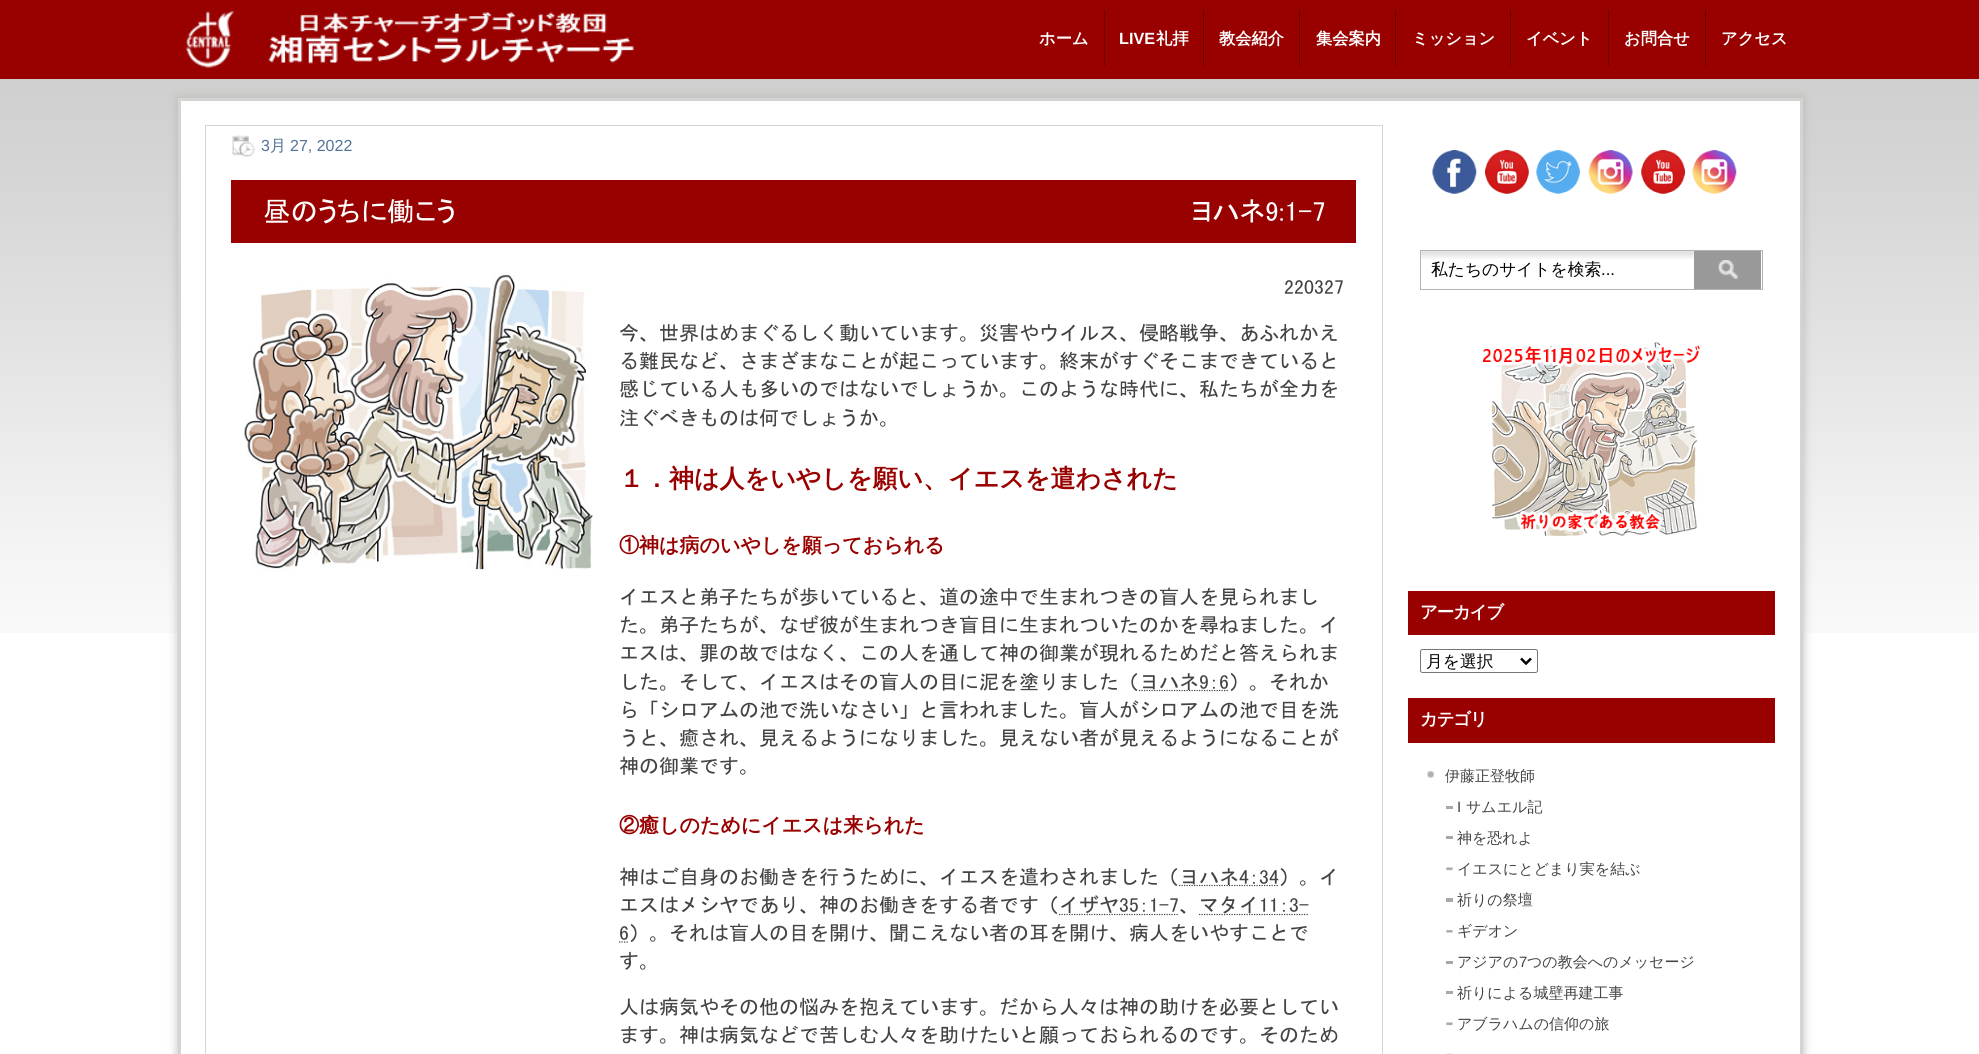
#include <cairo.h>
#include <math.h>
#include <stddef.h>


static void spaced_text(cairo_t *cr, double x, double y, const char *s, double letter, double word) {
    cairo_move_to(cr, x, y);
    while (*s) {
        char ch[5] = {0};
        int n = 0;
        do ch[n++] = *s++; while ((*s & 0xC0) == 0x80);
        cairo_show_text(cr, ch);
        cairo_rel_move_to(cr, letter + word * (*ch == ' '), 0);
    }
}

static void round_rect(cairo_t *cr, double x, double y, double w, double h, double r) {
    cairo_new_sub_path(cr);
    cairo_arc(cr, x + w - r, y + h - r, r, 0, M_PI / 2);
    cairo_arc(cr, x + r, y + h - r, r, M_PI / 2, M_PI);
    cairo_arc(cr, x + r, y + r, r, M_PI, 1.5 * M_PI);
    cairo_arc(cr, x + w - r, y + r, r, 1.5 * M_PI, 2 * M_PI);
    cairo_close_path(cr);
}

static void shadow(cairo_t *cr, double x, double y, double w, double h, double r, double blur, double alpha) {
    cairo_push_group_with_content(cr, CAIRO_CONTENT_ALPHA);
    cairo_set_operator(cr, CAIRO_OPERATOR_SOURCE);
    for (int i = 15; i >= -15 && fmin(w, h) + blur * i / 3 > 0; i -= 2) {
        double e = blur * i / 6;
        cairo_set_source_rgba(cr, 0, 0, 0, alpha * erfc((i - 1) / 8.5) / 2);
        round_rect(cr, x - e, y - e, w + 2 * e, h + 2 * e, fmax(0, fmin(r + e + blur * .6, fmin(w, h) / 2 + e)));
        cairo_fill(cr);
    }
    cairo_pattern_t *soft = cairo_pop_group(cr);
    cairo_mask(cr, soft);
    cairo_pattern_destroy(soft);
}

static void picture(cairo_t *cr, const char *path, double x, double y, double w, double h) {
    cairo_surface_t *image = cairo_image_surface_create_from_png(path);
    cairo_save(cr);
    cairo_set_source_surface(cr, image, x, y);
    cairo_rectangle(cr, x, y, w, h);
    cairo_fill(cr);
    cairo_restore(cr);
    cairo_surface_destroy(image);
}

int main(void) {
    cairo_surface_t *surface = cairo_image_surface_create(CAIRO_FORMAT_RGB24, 1979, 1054);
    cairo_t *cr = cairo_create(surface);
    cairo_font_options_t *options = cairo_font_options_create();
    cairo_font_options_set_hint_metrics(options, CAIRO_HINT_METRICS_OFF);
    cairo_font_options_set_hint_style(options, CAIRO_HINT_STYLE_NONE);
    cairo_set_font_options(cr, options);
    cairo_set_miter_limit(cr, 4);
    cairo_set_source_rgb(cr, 1, 1, 1);
    cairo_paint(cr);
    picture(cr, "img1.png", 0, 79, 1979, 554);
    cairo_set_source_rgb(cr, 0.6, 0, 0);
    cairo_rectangle(cr, 0, 0, 1979, 79);
    cairo_fill(cr);
    picture(cr, "img2.png", 186, 11, 448, 57);
    cairo_set_source_rgb(cr, 0.42, 0, 0);
    cairo_rectangle(cr, 1104, 10, 1, 56);
    cairo_fill(cr);
    cairo_select_font_face(cr, "WenQuanYi Zen Hei", CAIRO_FONT_SLANT_NORMAL, CAIRO_FONT_WEIGHT_BOLD);
    cairo_set_font_size(cr, 16.25);
    cairo_set_source_rgb(cr, 1, 1, 1);
    cairo_move_to(cr, 1039, 44);
    cairo_show_text(cr, "ホーム");
    cairo_set_source_rgb(cr, 0.42, 0, 0);
    cairo_rectangle(cr, 1203, 10, 1, 56);
    cairo_fill(cr);
    cairo_select_font_face(cr, "Liberation Sans", CAIRO_FONT_SLANT_NORMAL, CAIRO_FONT_WEIGHT_BOLD);
    cairo_set_source_rgb(cr, 1, 1, 1);
    cairo_move_to(cr, 1119, 44);
    cairo_show_text(cr, "LIVE");
    cairo_select_font_face(cr, "WenQuanYi Zen Hei", CAIRO_FONT_SLANT_NORMAL, CAIRO_FONT_WEIGHT_BOLD);
    cairo_move_to(cr, 1156, 44);
    cairo_show_text(cr, "礼拝");
    cairo_set_source_rgb(cr, 0.42, 0, 0);
    cairo_rectangle(cr, 1299, 10, 1, 56);
    cairo_fill(cr);
    cairo_set_source_rgb(cr, 1, 1, 1);
    cairo_move_to(cr, 1219, 44);
    cairo_show_text(cr, "教会紹介");
    cairo_set_source_rgb(cr, 0.42, 0, 0);
    cairo_rectangle(cr, 1395, 10, 1, 56);
    cairo_fill(cr);
    cairo_set_source_rgb(cr, 1, 1, 1);
    cairo_move_to(cr, 1316, 44);
    cairo_show_text(cr, "集会案内");
    cairo_set_source_rgb(cr, 0.42, 0, 0);
    cairo_rectangle(cr, 1510, 10, 1, 56);
    cairo_fill(cr);
    cairo_set_source_rgb(cr, 1, 1, 1);
    cairo_move_to(cr, 1412, 44);
    cairo_show_text(cr, "ミッション");
    cairo_set_source_rgb(cr, 0.42, 0, 0);
    cairo_rectangle(cr, 1608, 10, 1, 56);
    cairo_fill(cr);
    cairo_set_source_rgb(cr, 1, 1, 1);
    cairo_move_to(cr, 1526, 44);
    cairo_show_text(cr, "イベント");
    cairo_set_source_rgb(cr, 0.42, 0, 0);
    cairo_rectangle(cr, 1705, 10, 1, 56);
    cairo_fill(cr);
    cairo_set_source_rgb(cr, 1, 1, 1);
    cairo_move_to(cr, 1624, 44);
    cairo_show_text(cr, "お問合せ");
    cairo_move_to(cr, 1721, 44);
    cairo_show_text(cr, "アクセス");
    cairo_set_source_rgb(cr, 0.749, 0.722, 0.69);
    shadow(cr, 178, 98, 1625, 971, 0, 5, 1);
    cairo_set_source_rgb(cr, 1, 1, 1);
    cairo_rectangle(cr, 179.5, 99.5, 1622, 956);
    cairo_fill_preserve(cr);
    cairo_set_source_rgb(cr, 0.831, 0.831, 0.831);
    cairo_set_line_width(cr, 3);
    cairo_stroke(cr);
    cairo_rectangle(cr, 205.5, 125.5, 1177, 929);
    cairo_set_line_width(cr, 1);
    cairo_stroke(cr);
    picture(cr, "img3.png", 232, 135, 23, 22);
    cairo_select_font_face(cr, "Liberation Sans", CAIRO_FONT_SLANT_NORMAL, CAIRO_FONT_WEIGHT_NORMAL);
    cairo_set_font_size(cr, 16);
    cairo_set_source_rgb(cr, 0.318, 0.447, 0.6);
    cairo_move_to(cr, 261, 151);
    cairo_show_text(cr, "3");
    cairo_select_font_face(cr, "WenQuanYi Zen Hei Medium", CAIRO_FONT_SLANT_NORMAL, CAIRO_FONT_WEIGHT_NORMAL);
    cairo_move_to(cr, 270, 151);
    cairo_show_text(cr, "月");
    cairo_select_font_face(cr, "Liberation Sans", CAIRO_FONT_SLANT_NORMAL, CAIRO_FONT_WEIGHT_NORMAL);
    cairo_move_to(cr, 290, 151);
    cairo_show_text(cr, "27, 2022");
    cairo_set_source_rgb(cr, 0.6, 0, 0);
    cairo_rectangle(cr, 231, 180, 1125, 63);
    cairo_fill(cr);
    cairo_select_font_face(cr, "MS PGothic", CAIRO_FONT_SLANT_NORMAL, CAIRO_FONT_WEIGHT_NORMAL);
    cairo_set_font_size(cr, 27.5);
    cairo_set_source_rgb(cr, 1, 1, 1);
    cairo_move_to(cr, 263, 221);
    cairo_show_text(cr, "昼のうちに働こう");
    cairo_move_to(cr, 1192, 221);
    cairo_show_text(cr, "ヨハネ9:1-7");
    picture(cr, "img4.png", 244, 274, 349, 297);
    cairo_select_font_face(cr, "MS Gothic", CAIRO_FONT_SLANT_NORMAL, CAIRO_FONT_WEIGHT_NORMAL);
    cairo_set_font_size(cr, 20);
    cairo_set_source_rgb(cr, 0.263, 0.263, 0.263);
    cairo_move_to(cr, 1284, 294);
    cairo_show_text(cr, "220327");
    cairo_move_to(cr, 619, 340);
    cairo_show_text(cr, "今、世界はめまぐるしく動いています。災害やウイルス、侵略戦争、あふれかえ");
    cairo_move_to(cr, 619, 368);
    cairo_show_text(cr, "る難民など、さまざまなことが起こっています。終末がすぐそこまできていると");
    cairo_move_to(cr, 619, 396);
    cairo_show_text(cr, "感じている人も多いのではないでしょうか。このような時代に、私たちが全力を");
    cairo_move_to(cr, 619, 425);
    cairo_show_text(cr, "注ぐべきものは何でしょうか。");
    cairo_select_font_face(cr, "WenQuanYi Zen Hei", CAIRO_FONT_SLANT_NORMAL, CAIRO_FONT_WEIGHT_BOLD);
    cairo_set_font_size(cr, 25);
    cairo_set_source_rgb(cr, 0.6, 0, 0);
    cairo_move_to(cr, 619, 487);
    cairo_show_text(cr, "１．神は人をいやしを願い、イエスを遣わされた");
    cairo_set_font_size(cr, 20);
    cairo_move_to(cr, 619, 552);
    cairo_show_text(cr, "①神は病のいやしを願っておられる");
    cairo_select_font_face(cr, "MS Gothic", CAIRO_FONT_SLANT_NORMAL, CAIRO_FONT_WEIGHT_NORMAL);
    cairo_set_source_rgb(cr, 0.263, 0.263, 0.263);
    cairo_move_to(cr, 619, 604);
    cairo_show_text(cr, "イエスと弟子たちが歩いていると、道の途中で生まれつきの盲人を見られまし");
    cairo_move_to(cr, 619, 632);
    cairo_show_text(cr, "た。弟子たちが、なぜ彼が生まれつき盲目に生まれついたのかを尋ねました。イ");
    cairo_move_to(cr, 619, 660);
    cairo_show_text(cr, "エスは、罪の故ではなく、この人を通して神の御業が現れるためだと答えられま");
    cairo_move_to(cr, 619, 689);
    cairo_show_text(cr, "した。そして、イエスはその盲人の目に泥を塗りました（");
    cairo_new_path(cr);
    cairo_move_to(cr, 1139, 690.5);
    cairo_line_to(cr, 1229, 690.5);
    cairo_set_line_width(cr, 1.2);
    cairo_set_dash(cr, (double[]){1.25, 1.25}, 2, 0);
    cairo_stroke(cr);
    cairo_move_to(cr, 1139, 689);
    cairo_show_text(cr, "ヨハネ9:6）。それか");
    cairo_move_to(cr, 619, 717);
    cairo_show_text(cr, "ら「シロアムの池で洗いなさい」と言われました。盲人がシロアムの池で目を洗");
    cairo_move_to(cr, 619, 745);
    cairo_show_text(cr, "うと、癒され、見えるようになりました。見えない者が見えるようになることが");
    cairo_move_to(cr, 619, 773);
    cairo_show_text(cr, "神の御業です。");
    cairo_select_font_face(cr, "WenQuanYi Zen Hei", CAIRO_FONT_SLANT_NORMAL, CAIRO_FONT_WEIGHT_BOLD);
    cairo_set_source_rgb(cr, 0.6, 0, 0);
    cairo_move_to(cr, 619, 832);
    cairo_show_text(cr, "②癒しのためにイエスは来られた");
    cairo_select_font_face(cr, "MS Gothic", CAIRO_FONT_SLANT_NORMAL, CAIRO_FONT_WEIGHT_NORMAL);
    cairo_set_source_rgb(cr, 0.263, 0.263, 0.263);
    cairo_move_to(cr, 619, 884);
    cairo_show_text(cr, "神はご自身のお働きを行うために、イエスを遣わされました（");
    cairo_new_path(cr);
    cairo_move_to(cr, 1179, 885.5);
    cairo_line_to(cr, 1279, 885.5);
    cairo_stroke(cr);
    cairo_move_to(cr, 1179, 884);
    cairo_show_text(cr, "ヨハネ4:34）。イ");
    cairo_move_to(cr, 619, 912);
    cairo_show_text(cr, "エスはメシヤであり、神のお働きをする者です（");
    cairo_new_path(cr);
    cairo_move_to(cr, 1059, 914.5);
    cairo_line_to(cr, 1179, 914.5);
    cairo_stroke(cr);
    cairo_move_to(cr, 1059, 912);
    cairo_show_text(cr, "イザヤ35:1-7、");
    cairo_new_path(cr);
    cairo_move_to(cr, 1199, 914.5);
    cairo_line_to(cr, 1309, 914.5);
    cairo_stroke(cr);
    cairo_move_to(cr, 1199, 912);
    cairo_show_text(cr, "マタイ11:3-");
    cairo_new_path(cr);
    cairo_move_to(cr, 619, 942);
    cairo_line_to(cr, 629, 942);
    cairo_stroke(cr);
    cairo_move_to(cr, 619, 940);
    cairo_show_text(cr, "6）。それは盲人の目を開け、聞こえない者の耳を開け、病人をいやすことで");
    cairo_move_to(cr, 619, 968);
    cairo_show_text(cr, "す。");
    cairo_move_to(cr, 619, 1014);
    cairo_show_text(cr, "人は病気やその他の悩みを抱えています。だから人々は神の助けを必要としてい");
    cairo_move_to(cr, 619, 1042);
    cairo_show_text(cr, "ます。神は病気などで苦しむ人々を助けたいと願っておられるのです。そのため");
    picture(cr, "img5.png", 1432, 150, 45, 44);
    picture(cr, "img6.png", 1485, 150, 44, 44);
    picture(cr, "img7.png", 1536, 150, 44, 44);
    picture(cr, "img8.png", 1588, 150, 45, 44);
    picture(cr, "img9.png", 1641, 150, 44, 44);
    picture(cr, "img10.png", 1692, 150, 45, 44);
    cairo_rectangle(cr, 1420.5, 250.5, 342, 39);
    cairo_set_source_rgb(cr, 0.702, 0.702, 0.702);
    cairo_set_line_width(cr, 1);
    cairo_set_dash(cr, NULL, 0, 0);
    cairo_stroke(cr);
    picture(cr, "img11.png", 1421, 251, 273, 8);
    cairo_select_font_face(cr, "WenQuanYi Zen Hei Medium", CAIRO_FONT_SLANT_NORMAL, CAIRO_FONT_WEIGHT_NORMAL);
    cairo_set_font_size(cr, 16.75);
    cairo_set_source_rgb(cr, 0, 0, 0);
    cairo_move_to(cr, 1431, 275);
    cairo_show_text(cr, "私たちのサイトを検索");
    cairo_select_font_face(cr, "Liberation Sans", CAIRO_FONT_SLANT_NORMAL, CAIRO_FONT_WEIGHT_NORMAL);
    cairo_move_to(cr, 1601, 275);
    cairo_show_text(cr, "...");
    cairo_set_source_rgb(cr, 0.6, 0.6, 0.6);
    cairo_rectangle(cr, 1694, 251, 67, 38);
    cairo_fill(cr);
    picture(cr, "img12.png", 1718, 260, 20, 19);
    picture(cr, "img13.png", 1483, 342, 217, 194);
    cairo_set_source_rgb(cr, 0.6, 0, 0);
    cairo_rectangle(cr, 1408, 591, 367, 44);
    cairo_fill(cr);
    cairo_select_font_face(cr, "WenQuanYi Zen Hei", CAIRO_FONT_SLANT_NORMAL, CAIRO_FONT_WEIGHT_BOLD);
    cairo_set_font_size(cr, 17.5);
    cairo_set_source_rgb(cr, 1, 1, 1);
    spaced_text(cr, 1420, 618, "アーカイブ", -1.25, 0);
    round_rect(cr, 1420.5, 649.5, 117, 23, 2);
    cairo_set_source_rgb(cr, 0.463, 0.463, 0.463);
    cairo_stroke(cr);
    cairo_new_path(cr);
    cairo_move_to(cr, 1521, 658.5);
    cairo_line_to(cr, 1526, 663.5);
    cairo_line_to(cr, 1531, 658.5);
    cairo_set_source_rgb(cr, 0, 0, 0);
    cairo_set_line_width(cr, 2.5);
    cairo_stroke(cr);
    cairo_select_font_face(cr, "WenQuanYi Zen Hei Medium", CAIRO_FONT_SLANT_NORMAL, CAIRO_FONT_WEIGHT_NORMAL);
    cairo_set_font_size(cr, 16.75);
    cairo_move_to(cr, 1426, 667);
    cairo_show_text(cr, "月を選択");
    cairo_set_source_rgb(cr, 0.6, 0, 0);
    cairo_rectangle(cr, 1408, 698, 367, 45);
    cairo_fill(cr);
    cairo_select_font_face(cr, "WenQuanYi Zen Hei", CAIRO_FONT_SLANT_NORMAL, CAIRO_FONT_WEIGHT_BOLD);
    cairo_set_font_size(cr, 17.5);
    cairo_set_source_rgb(cr, 1, 1, 1);
    spaced_text(cr, 1420, 725, "カテゴリ", -1.25, 0);
    picture(cr, "img14.png", 1427, 771, 7, 7);
    cairo_select_font_face(cr, "WenQuanYi Zen Hei Medium", CAIRO_FONT_SLANT_NORMAL, CAIRO_FONT_WEIGHT_NORMAL);
    cairo_set_font_size(cr, 15);
    cairo_set_source_rgb(cr, 0.263, 0.263, 0.263);
    cairo_move_to(cr, 1445, 781);
    cairo_show_text(cr, "伊藤正登牧師");
    cairo_set_source_rgb(cr, 0.659, 0.659, 0.659);
    cairo_rectangle(cr, 1446, 806, 7, 3);
    cairo_fill(cr);
    cairo_select_font_face(cr, "Liberation Sans", CAIRO_FONT_SLANT_NORMAL, CAIRO_FONT_WEIGHT_NORMAL);
    cairo_set_source_rgb(cr, 0.263, 0.263, 0.263);
    cairo_move_to(cr, 1457, 812);
    cairo_show_text(cr, "I");
    cairo_select_font_face(cr, "WenQuanYi Zen Hei Medium", CAIRO_FONT_SLANT_NORMAL, CAIRO_FONT_WEIGHT_NORMAL);
    cairo_move_to(cr, 1466, 812);
    cairo_show_text(cr, "サムエル記");
    cairo_set_source_rgb(cr, 0.659, 0.659, 0.659);
    cairo_rectangle(cr, 1446, 836, 7, 3);
    cairo_fill(cr);
    cairo_set_source_rgb(cr, 0.263, 0.263, 0.263);
    cairo_move_to(cr, 1457, 843);
    cairo_show_text(cr, "神を恐れよ");
    picture(cr, "img15.png", 1446, 867, 7, 4);
    cairo_move_to(cr, 1457, 874);
    cairo_show_text(cr, "イエスにとどまり実を結ぶ");
    cairo_set_source_rgb(cr, 0.659, 0.659, 0.659);
    cairo_rectangle(cr, 1446, 898, 7, 4);
    cairo_fill(cr);
    cairo_set_source_rgb(cr, 0.263, 0.263, 0.263);
    cairo_move_to(cr, 1457, 905);
    cairo_show_text(cr, "祈りの祭壇");
    picture(cr, "img16.png", 1446, 930, 7, 3);
    cairo_move_to(cr, 1457, 936);
    cairo_show_text(cr, "ギデオン");
    cairo_set_source_rgb(cr, 0.659, 0.659, 0.659);
    cairo_rectangle(cr, 1446, 961, 7, 3);
    cairo_fill(cr);
    cairo_set_source_rgb(cr, 0.263, 0.263, 0.263);
    cairo_move_to(cr, 1457, 967);
    cairo_show_text(cr, "アジアの");
    cairo_select_font_face(cr, "Liberation Sans", CAIRO_FONT_SLANT_NORMAL, CAIRO_FONT_WEIGHT_NORMAL);
    cairo_move_to(cr, 1519, 967);
    cairo_show_text(cr, "7");
    cairo_select_font_face(cr, "WenQuanYi Zen Hei Medium", CAIRO_FONT_SLANT_NORMAL, CAIRO_FONT_WEIGHT_NORMAL);
    cairo_move_to(cr, 1527, 967);
    cairo_show_text(cr, "つの教会へのメッセージ");
    cairo_set_source_rgb(cr, 0.659, 0.659, 0.659);
    cairo_rectangle(cr, 1446, 991, 7, 3);
    cairo_fill(cr);
    cairo_set_source_rgb(cr, 0.263, 0.263, 0.263);
    cairo_move_to(cr, 1457, 998);
    cairo_show_text(cr, "祈りによる城壁再建工事");
    picture(cr, "img15.png", 1446, 1022, 7, 4);
    cairo_move_to(cr, 1457, 1029);
    cairo_show_text(cr, "アブラハムの信仰の旅");
    picture(cr, "img17.png", 1446, 1053, 7, 1);
    cairo_surface_write_to_png(surface, "page.png");
    cairo_font_options_destroy(options);
    cairo_destroy(cr);
    cairo_surface_destroy(surface);
    return 0;
}
